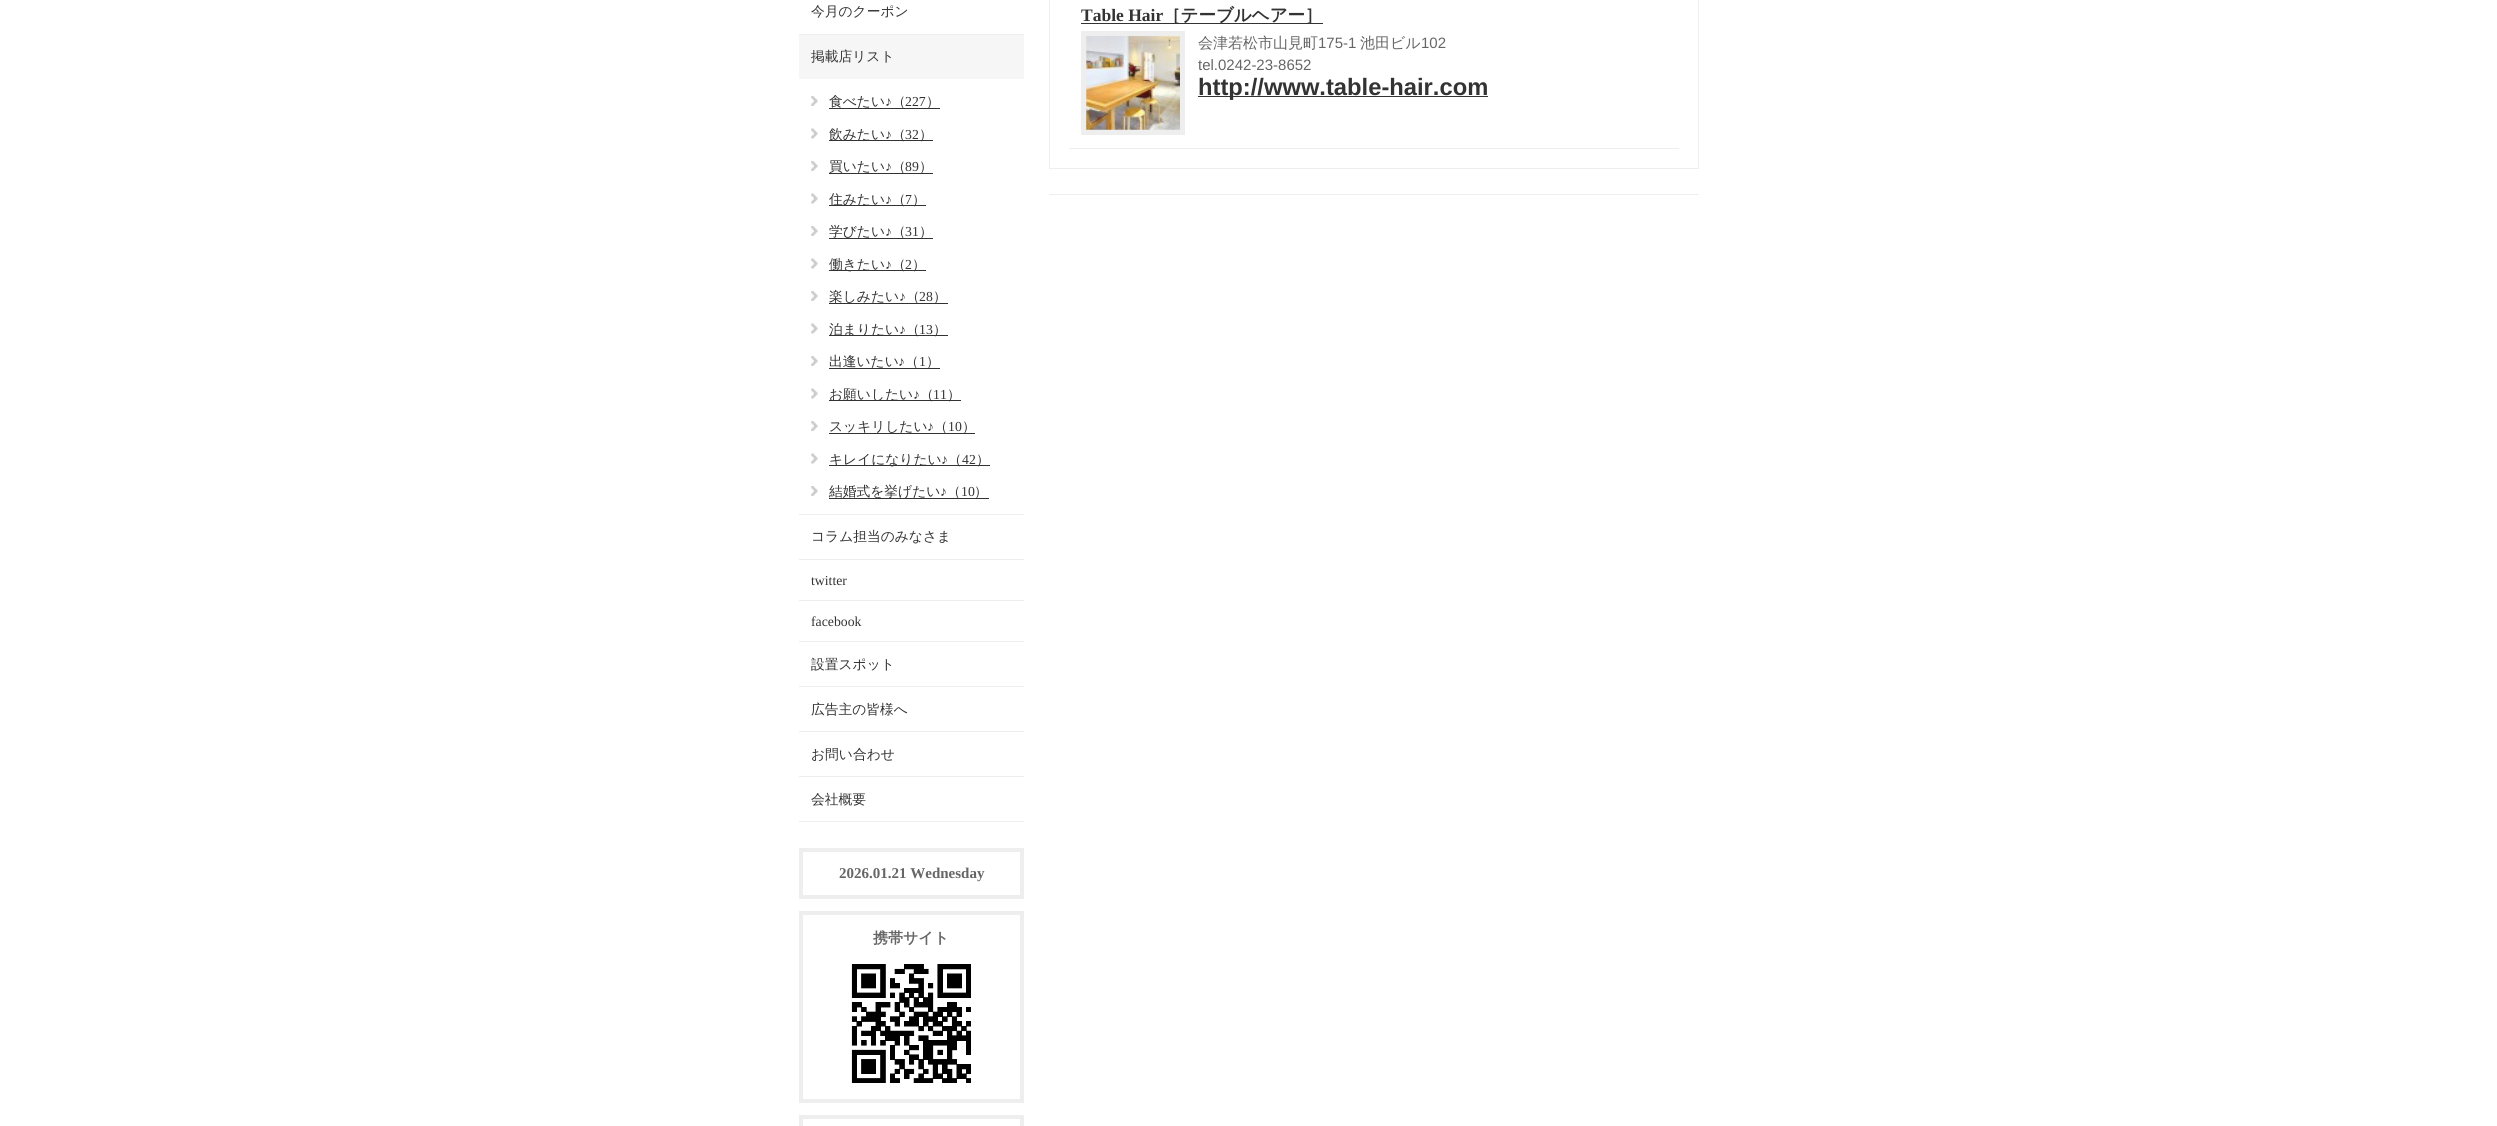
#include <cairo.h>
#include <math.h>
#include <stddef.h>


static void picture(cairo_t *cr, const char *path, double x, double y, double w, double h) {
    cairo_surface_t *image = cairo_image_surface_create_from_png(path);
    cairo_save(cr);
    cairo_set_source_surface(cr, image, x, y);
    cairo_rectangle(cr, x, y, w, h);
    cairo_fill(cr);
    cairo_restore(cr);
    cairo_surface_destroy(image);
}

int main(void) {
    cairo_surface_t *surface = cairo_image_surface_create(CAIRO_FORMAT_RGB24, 2497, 1126);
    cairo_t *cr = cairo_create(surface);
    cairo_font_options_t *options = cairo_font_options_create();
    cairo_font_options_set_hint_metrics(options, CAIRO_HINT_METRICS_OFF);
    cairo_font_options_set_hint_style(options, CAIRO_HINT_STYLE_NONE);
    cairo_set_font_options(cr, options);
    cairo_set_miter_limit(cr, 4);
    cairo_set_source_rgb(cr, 1, 1, 1);
    cairo_paint(cr);
    cairo_set_source_rgb(cr, 0.933, 0.933, 0.933);
    cairo_rectangle(cr, 799, 34, 225, 1);
    cairo_fill(cr);
    cairo_select_font_face(cr, "WenQuanYi Zen Hei Medium", CAIRO_FONT_SLANT_NORMAL, CAIRO_FONT_WEIGHT_NORMAL);
    cairo_set_font_size(cr, 13.75);
    cairo_set_source_rgb(cr, 0.2, 0.2, 0.2);
    cairo_move_to(cr, 811, 16);
    cairo_show_text(cr, "今月のクーポン");
    cairo_set_source_rgb(cr, 0.933, 0.933, 0.933);
    cairo_rectangle(cr, 799, 514, 225, 1);
    cairo_fill(cr);
    cairo_set_source_rgb(cr, 0.961, 0.961, 0.961);
    cairo_rectangle(cr, 799, 35, 225, 44);
    cairo_fill(cr);
    cairo_set_source_rgb(cr, 0.2, 0.2, 0.2);
    cairo_move_to(cr, 811, 61);
    cairo_show_text(cr, "掲載店リスト");
    picture(cr, "img1.png", 811, 96, 7, 10);
    cairo_move_to(cr, 829, 106);
    cairo_show_text(cr, "食べたい");
    cairo_select_font_face(cr, "Liberation Serif", CAIRO_FONT_SLANT_NORMAL, CAIRO_FONT_WEIGHT_NORMAL);
    cairo_move_to(cr, 885, 106);
    cairo_show_text(cr, "♪");
    cairo_rectangle(cr, 829, 108, 111, 1);
    cairo_fill(cr);
    cairo_select_font_face(cr, "WenQuanYi Zen Hei Medium", CAIRO_FONT_SLANT_NORMAL, CAIRO_FONT_WEIGHT_NORMAL);
    cairo_move_to(cr, 892, 106);
    cairo_show_text(cr, "（");
    cairo_select_font_face(cr, "Liberation Serif", CAIRO_FONT_SLANT_NORMAL, CAIRO_FONT_WEIGHT_NORMAL);
    cairo_move_to(cr, 905, 106);
    cairo_show_text(cr, "227");
    cairo_select_font_face(cr, "WenQuanYi Zen Hei Medium", CAIRO_FONT_SLANT_NORMAL, CAIRO_FONT_WEIGHT_NORMAL);
    cairo_move_to(cr, 926, 106);
    cairo_show_text(cr, "）");
    picture(cr, "img2.png", 811, 128, 7, 11);
    cairo_rectangle(cr, 829, 140, 104, 1);
    cairo_fill(cr);
    cairo_move_to(cr, 829, 139);
    cairo_show_text(cr, "飲みたい");
    cairo_select_font_face(cr, "Liberation Serif", CAIRO_FONT_SLANT_NORMAL, CAIRO_FONT_WEIGHT_NORMAL);
    cairo_move_to(cr, 885, 139);
    cairo_show_text(cr, "♪");
    cairo_select_font_face(cr, "WenQuanYi Zen Hei Medium", CAIRO_FONT_SLANT_NORMAL, CAIRO_FONT_WEIGHT_NORMAL);
    cairo_move_to(cr, 892, 139);
    cairo_show_text(cr, "（");
    cairo_select_font_face(cr, "Liberation Serif", CAIRO_FONT_SLANT_NORMAL, CAIRO_FONT_WEIGHT_NORMAL);
    cairo_move_to(cr, 905, 139);
    cairo_show_text(cr, "32");
    cairo_select_font_face(cr, "WenQuanYi Zen Hei Medium", CAIRO_FONT_SLANT_NORMAL, CAIRO_FONT_WEIGHT_NORMAL);
    cairo_move_to(cr, 919, 139);
    cairo_show_text(cr, "）");
    picture(cr, "img1.png", 811, 161, 7, 10);
    cairo_rectangle(cr, 829, 173, 104, 1);
    cairo_fill(cr);
    cairo_move_to(cr, 829, 171);
    cairo_show_text(cr, "買いたい");
    cairo_select_font_face(cr, "Liberation Serif", CAIRO_FONT_SLANT_NORMAL, CAIRO_FONT_WEIGHT_NORMAL);
    cairo_move_to(cr, 885, 171);
    cairo_show_text(cr, "♪");
    cairo_select_font_face(cr, "WenQuanYi Zen Hei Medium", CAIRO_FONT_SLANT_NORMAL, CAIRO_FONT_WEIGHT_NORMAL);
    cairo_move_to(cr, 892, 171);
    cairo_show_text(cr, "（");
    cairo_select_font_face(cr, "Liberation Serif", CAIRO_FONT_SLANT_NORMAL, CAIRO_FONT_WEIGHT_NORMAL);
    cairo_move_to(cr, 905, 171);
    cairo_show_text(cr, "89");
    cairo_select_font_face(cr, "WenQuanYi Zen Hei Medium", CAIRO_FONT_SLANT_NORMAL, CAIRO_FONT_WEIGHT_NORMAL);
    cairo_move_to(cr, 919, 171);
    cairo_show_text(cr, "）");
    picture(cr, "img2.png", 811, 193, 7, 11);
    cairo_rectangle(cr, 829, 205, 97, 1);
    cairo_fill(cr);
    cairo_move_to(cr, 829, 204);
    cairo_show_text(cr, "住みたい");
    cairo_select_font_face(cr, "Liberation Serif", CAIRO_FONT_SLANT_NORMAL, CAIRO_FONT_WEIGHT_NORMAL);
    cairo_move_to(cr, 885, 204);
    cairo_show_text(cr, "♪");
    cairo_select_font_face(cr, "WenQuanYi Zen Hei Medium", CAIRO_FONT_SLANT_NORMAL, CAIRO_FONT_WEIGHT_NORMAL);
    cairo_move_to(cr, 892, 204);
    cairo_show_text(cr, "（");
    cairo_select_font_face(cr, "Liberation Serif", CAIRO_FONT_SLANT_NORMAL, CAIRO_FONT_WEIGHT_NORMAL);
    cairo_move_to(cr, 905, 204);
    cairo_show_text(cr, "7");
    cairo_select_font_face(cr, "WenQuanYi Zen Hei Medium", CAIRO_FONT_SLANT_NORMAL, CAIRO_FONT_WEIGHT_NORMAL);
    cairo_move_to(cr, 912, 204);
    cairo_show_text(cr, "）");
    picture(cr, "img1.png", 811, 226, 7, 10);
    cairo_move_to(cr, 829, 236);
    cairo_show_text(cr, "学びたい");
    cairo_select_font_face(cr, "Liberation Serif", CAIRO_FONT_SLANT_NORMAL, CAIRO_FONT_WEIGHT_NORMAL);
    cairo_move_to(cr, 885, 236);
    cairo_show_text(cr, "♪");
    cairo_rectangle(cr, 829, 238, 104, 1);
    cairo_fill(cr);
    cairo_select_font_face(cr, "WenQuanYi Zen Hei Medium", CAIRO_FONT_SLANT_NORMAL, CAIRO_FONT_WEIGHT_NORMAL);
    cairo_move_to(cr, 892, 236);
    cairo_show_text(cr, "（");
    cairo_select_font_face(cr, "Liberation Serif", CAIRO_FONT_SLANT_NORMAL, CAIRO_FONT_WEIGHT_NORMAL);
    cairo_move_to(cr, 905, 236);
    cairo_show_text(cr, "31");
    cairo_select_font_face(cr, "WenQuanYi Zen Hei Medium", CAIRO_FONT_SLANT_NORMAL, CAIRO_FONT_WEIGHT_NORMAL);
    cairo_move_to(cr, 919, 236);
    cairo_show_text(cr, "）");
    picture(cr, "img2.png", 811, 258, 7, 11);
    cairo_rectangle(cr, 829, 270, 97, 1);
    cairo_fill(cr);
    cairo_move_to(cr, 829, 269);
    cairo_show_text(cr, "働きたい");
    cairo_select_font_face(cr, "Liberation Serif", CAIRO_FONT_SLANT_NORMAL, CAIRO_FONT_WEIGHT_NORMAL);
    cairo_move_to(cr, 885, 269);
    cairo_show_text(cr, "♪");
    cairo_select_font_face(cr, "WenQuanYi Zen Hei Medium", CAIRO_FONT_SLANT_NORMAL, CAIRO_FONT_WEIGHT_NORMAL);
    cairo_move_to(cr, 892, 269);
    cairo_show_text(cr, "（");
    cairo_select_font_face(cr, "Liberation Serif", CAIRO_FONT_SLANT_NORMAL, CAIRO_FONT_WEIGHT_NORMAL);
    cairo_move_to(cr, 905, 269);
    cairo_show_text(cr, "2");
    cairo_select_font_face(cr, "WenQuanYi Zen Hei Medium", CAIRO_FONT_SLANT_NORMAL, CAIRO_FONT_WEIGHT_NORMAL);
    cairo_move_to(cr, 912, 269);
    cairo_show_text(cr, "）");
    picture(cr, "img1.png", 811, 291, 7, 10);
    cairo_move_to(cr, 829, 301);
    cairo_show_text(cr, "楽しみたい");
    cairo_select_font_face(cr, "Liberation Serif", CAIRO_FONT_SLANT_NORMAL, CAIRO_FONT_WEIGHT_NORMAL);
    cairo_move_to(cr, 899, 301);
    cairo_show_text(cr, "♪");
    cairo_rectangle(cr, 829, 303, 119, 1);
    cairo_fill(cr);
    cairo_select_font_face(cr, "WenQuanYi Zen Hei Medium", CAIRO_FONT_SLANT_NORMAL, CAIRO_FONT_WEIGHT_NORMAL);
    cairo_move_to(cr, 906, 301);
    cairo_show_text(cr, "（");
    cairo_select_font_face(cr, "Liberation Serif", CAIRO_FONT_SLANT_NORMAL, CAIRO_FONT_WEIGHT_NORMAL);
    cairo_move_to(cr, 919, 301);
    cairo_show_text(cr, "28");
    cairo_select_font_face(cr, "WenQuanYi Zen Hei Medium", CAIRO_FONT_SLANT_NORMAL, CAIRO_FONT_WEIGHT_NORMAL);
    cairo_move_to(cr, 933, 301);
    cairo_show_text(cr, "）");
    picture(cr, "img2.png", 811, 323, 7, 11);
    cairo_rectangle(cr, 829, 335, 119, 1);
    cairo_fill(cr);
    cairo_move_to(cr, 829, 334);
    cairo_show_text(cr, "泊まりたい");
    cairo_select_font_face(cr, "Liberation Serif", CAIRO_FONT_SLANT_NORMAL, CAIRO_FONT_WEIGHT_NORMAL);
    cairo_move_to(cr, 899, 334);
    cairo_show_text(cr, "♪");
    cairo_select_font_face(cr, "WenQuanYi Zen Hei Medium", CAIRO_FONT_SLANT_NORMAL, CAIRO_FONT_WEIGHT_NORMAL);
    cairo_move_to(cr, 906, 334);
    cairo_show_text(cr, "（");
    cairo_select_font_face(cr, "Liberation Serif", CAIRO_FONT_SLANT_NORMAL, CAIRO_FONT_WEIGHT_NORMAL);
    cairo_move_to(cr, 919, 334);
    cairo_show_text(cr, "13");
    cairo_select_font_face(cr, "WenQuanYi Zen Hei Medium", CAIRO_FONT_SLANT_NORMAL, CAIRO_FONT_WEIGHT_NORMAL);
    cairo_move_to(cr, 933, 334);
    cairo_show_text(cr, "）");
    picture(cr, "img1.png", 811, 356, 7, 10);
    cairo_move_to(cr, 829, 366);
    cairo_show_text(cr, "出逢いたい");
    cairo_select_font_face(cr, "Liberation Serif", CAIRO_FONT_SLANT_NORMAL, CAIRO_FONT_WEIGHT_NORMAL);
    cairo_move_to(cr, 898, 366);
    cairo_show_text(cr, "♪");
    cairo_rectangle(cr, 829, 368, 111, 1);
    cairo_fill(cr);
    cairo_select_font_face(cr, "WenQuanYi Zen Hei Medium", CAIRO_FONT_SLANT_NORMAL, CAIRO_FONT_WEIGHT_NORMAL);
    cairo_move_to(cr, 905, 366);
    cairo_show_text(cr, "（");
    cairo_select_font_face(cr, "Liberation Serif", CAIRO_FONT_SLANT_NORMAL, CAIRO_FONT_WEIGHT_NORMAL);
    cairo_move_to(cr, 919, 366);
    cairo_show_text(cr, "1");
    cairo_select_font_face(cr, "WenQuanYi Zen Hei Medium", CAIRO_FONT_SLANT_NORMAL, CAIRO_FONT_WEIGHT_NORMAL);
    cairo_move_to(cr, 926, 366);
    cairo_show_text(cr, "）");
    picture(cr, "img2.png", 811, 388, 7, 11);
    cairo_rectangle(cr, 829, 400, 132, 1);
    cairo_fill(cr);
    cairo_move_to(cr, 829, 399);
    cairo_show_text(cr, "お願いしたい");
    cairo_select_font_face(cr, "Liberation Serif", CAIRO_FONT_SLANT_NORMAL, CAIRO_FONT_WEIGHT_NORMAL);
    cairo_move_to(cr, 913, 399);
    cairo_show_text(cr, "♪");
    cairo_select_font_face(cr, "WenQuanYi Zen Hei Medium", CAIRO_FONT_SLANT_NORMAL, CAIRO_FONT_WEIGHT_NORMAL);
    cairo_move_to(cr, 920, 399);
    cairo_show_text(cr, "（");
    cairo_select_font_face(cr, "Liberation Serif", CAIRO_FONT_SLANT_NORMAL, CAIRO_FONT_WEIGHT_NORMAL);
    cairo_move_to(cr, 933, 399);
    cairo_show_text(cr, "11");
    cairo_select_font_face(cr, "WenQuanYi Zen Hei Medium", CAIRO_FONT_SLANT_NORMAL, CAIRO_FONT_WEIGHT_NORMAL);
    cairo_move_to(cr, 947, 399);
    cairo_show_text(cr, "）");
    picture(cr, "img1.png", 811, 421, 7, 10);
    cairo_move_to(cr, 829, 431);
    cairo_show_text(cr, "スッキリしたい");
    cairo_select_font_face(cr, "Liberation Serif", CAIRO_FONT_SLANT_NORMAL, CAIRO_FONT_WEIGHT_NORMAL);
    cairo_move_to(cr, 927, 431);
    cairo_show_text(cr, "♪");
    cairo_rectangle(cr, 829, 433, 146, 1);
    cairo_fill(cr);
    cairo_select_font_face(cr, "WenQuanYi Zen Hei Medium", CAIRO_FONT_SLANT_NORMAL, CAIRO_FONT_WEIGHT_NORMAL);
    cairo_move_to(cr, 934, 431);
    cairo_show_text(cr, "（");
    cairo_select_font_face(cr, "Liberation Serif", CAIRO_FONT_SLANT_NORMAL, CAIRO_FONT_WEIGHT_NORMAL);
    cairo_move_to(cr, 948, 431);
    cairo_show_text(cr, "10");
    cairo_select_font_face(cr, "WenQuanYi Zen Hei Medium", CAIRO_FONT_SLANT_NORMAL, CAIRO_FONT_WEIGHT_NORMAL);
    cairo_move_to(cr, 962, 431);
    cairo_show_text(cr, "）");
    picture(cr, "img2.png", 811, 453, 7, 11);
    cairo_rectangle(cr, 829, 465, 161, 1);
    cairo_fill(cr);
    cairo_move_to(cr, 829, 464);
    cairo_show_text(cr, "キレイになりたい");
    cairo_select_font_face(cr, "Liberation Serif", CAIRO_FONT_SLANT_NORMAL, CAIRO_FONT_WEIGHT_NORMAL);
    cairo_move_to(cr, 941, 464);
    cairo_show_text(cr, "♪");
    cairo_select_font_face(cr, "WenQuanYi Zen Hei Medium", CAIRO_FONT_SLANT_NORMAL, CAIRO_FONT_WEIGHT_NORMAL);
    cairo_move_to(cr, 948, 464);
    cairo_show_text(cr, "（");
    cairo_select_font_face(cr, "Liberation Serif", CAIRO_FONT_SLANT_NORMAL, CAIRO_FONT_WEIGHT_NORMAL);
    cairo_move_to(cr, 962, 464);
    cairo_show_text(cr, "42");
    cairo_select_font_face(cr, "WenQuanYi Zen Hei Medium", CAIRO_FONT_SLANT_NORMAL, CAIRO_FONT_WEIGHT_NORMAL);
    cairo_move_to(cr, 976, 464);
    cairo_show_text(cr, "）");
    picture(cr, "img1.png", 811, 486, 7, 10);
    cairo_rectangle(cr, 829, 498, 160, 1);
    cairo_fill(cr);
    cairo_move_to(cr, 829, 496);
    cairo_show_text(cr, "結婚式を挙げたい");
    cairo_select_font_face(cr, "Liberation Serif", CAIRO_FONT_SLANT_NORMAL, CAIRO_FONT_WEIGHT_NORMAL);
    cairo_move_to(cr, 940, 496);
    cairo_show_text(cr, "♪");
    cairo_select_font_face(cr, "WenQuanYi Zen Hei Medium", CAIRO_FONT_SLANT_NORMAL, CAIRO_FONT_WEIGHT_NORMAL);
    cairo_move_to(cr, 947, 496);
    cairo_show_text(cr, "（");
    cairo_select_font_face(cr, "Liberation Serif", CAIRO_FONT_SLANT_NORMAL, CAIRO_FONT_WEIGHT_NORMAL);
    cairo_move_to(cr, 961, 496);
    cairo_show_text(cr, "10");
    cairo_select_font_face(cr, "WenQuanYi Zen Hei Medium", CAIRO_FONT_SLANT_NORMAL, CAIRO_FONT_WEIGHT_NORMAL);
    cairo_move_to(cr, 974, 496);
    cairo_show_text(cr, "）");
    cairo_set_source_rgb(cr, 0.933, 0.933, 0.933);
    cairo_rectangle(cr, 799, 559, 225, 1);
    cairo_fill(cr);
    cairo_set_source_rgb(cr, 0.2, 0.2, 0.2);
    cairo_move_to(cr, 811, 541);
    cairo_show_text(cr, "コラム担当のみなさま");
    cairo_set_source_rgb(cr, 0.933, 0.933, 0.933);
    cairo_rectangle(cr, 799, 600, 225, 1);
    cairo_fill(cr);
    cairo_select_font_face(cr, "Liberation Serif", CAIRO_FONT_SLANT_NORMAL, CAIRO_FONT_WEIGHT_NORMAL);
    cairo_set_source_rgb(cr, 0.2, 0.2, 0.2);
    cairo_move_to(cr, 811, 585);
    cairo_show_text(cr, "twitter");
    cairo_set_source_rgb(cr, 0.933, 0.933, 0.933);
    cairo_rectangle(cr, 799, 641, 225, 1);
    cairo_fill(cr);
    cairo_set_source_rgb(cr, 0.2, 0.2, 0.2);
    cairo_move_to(cr, 811, 626);
    cairo_show_text(cr, "facebook");
    cairo_set_source_rgb(cr, 0.933, 0.933, 0.933);
    cairo_rectangle(cr, 799, 686, 225, 1);
    cairo_fill(cr);
    cairo_select_font_face(cr, "WenQuanYi Zen Hei Medium", CAIRO_FONT_SLANT_NORMAL, CAIRO_FONT_WEIGHT_NORMAL);
    cairo_set_source_rgb(cr, 0.2, 0.2, 0.2);
    cairo_move_to(cr, 811, 669);
    cairo_show_text(cr, "設置スポット");
    cairo_set_source_rgb(cr, 0.933, 0.933, 0.933);
    cairo_rectangle(cr, 799, 731, 225, 1);
    cairo_fill(cr);
    cairo_set_source_rgb(cr, 0.2, 0.2, 0.2);
    cairo_move_to(cr, 811, 714);
    cairo_show_text(cr, "広告主の皆様へ");
    cairo_set_source_rgb(cr, 0.933, 0.933, 0.933);
    cairo_rectangle(cr, 799, 776, 225, 1);
    cairo_fill(cr);
    cairo_set_source_rgb(cr, 0.2, 0.2, 0.2);
    cairo_move_to(cr, 811, 759);
    cairo_show_text(cr, "お問い合わせ");
    cairo_set_source_rgb(cr, 0.933, 0.933, 0.933);
    cairo_rectangle(cr, 799, 821, 225, 1);
    cairo_fill(cr);
    cairo_set_source_rgb(cr, 0.2, 0.2, 0.2);
    cairo_move_to(cr, 811, 804);
    cairo_show_text(cr, "会社概要");
    cairo_set_source_rgb(cr, 0.933, 0.933, 0.933);
    cairo_rectangle(cr, 1049, 194, 650, 1);
    cairo_fill(cr);
    cairo_rectangle(cr, 1049.5, -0.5, 649, 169);
    cairo_set_line_width(cr, 1);
    cairo_stroke(cr);
    cairo_rectangle(cr, 1069, 148, 610, 1);
    cairo_fill(cr);
    cairo_select_font_face(cr, "Liberation Serif", CAIRO_FONT_SLANT_NORMAL, CAIRO_FONT_WEIGHT_BOLD);
    cairo_set_font_size(cr, 17.5);
    cairo_set_source_rgb(cr, 0.2, 0.2, 0.2);
    cairo_move_to(cr, 1081, 21);
    cairo_show_text(cr, "Table Hair");
    cairo_rectangle(cr, 1081, 23, 242, 1);
    cairo_fill(cr);
    cairo_select_font_face(cr, "WenQuanYi Zen Hei", CAIRO_FONT_SLANT_NORMAL, CAIRO_FONT_WEIGHT_BOLD);
    cairo_move_to(cr, 1163, 21);
    cairo_show_text(cr, "［テーブルヘアー］");
    cairo_set_source_rgb(cr, 0.933, 0.933, 0.933);
    cairo_rectangle(cr, 1081, 31, 104, 104);
    cairo_fill(cr);
    picture(cr, "img3.png", 1086, 36, 94, 94);
    cairo_select_font_face(cr, "WenQuanYi Zen Hei Medium", CAIRO_FONT_SLANT_NORMAL, CAIRO_FONT_WEIGHT_NORMAL);
    cairo_set_font_size(cr, 15);
    cairo_set_source_rgb(cr, 0.4, 0.4, 0.4);
    cairo_move_to(cr, 1198, 48);
    cairo_show_text(cr, "会津若松市山見町");
    cairo_select_font_face(cr, "Liberation Sans", CAIRO_FONT_SLANT_NORMAL, CAIRO_FONT_WEIGHT_NORMAL);
    cairo_move_to(cr, 1318, 48);
    cairo_show_text(cr, "175-1");
    cairo_select_font_face(cr, "WenQuanYi Zen Hei Medium", CAIRO_FONT_SLANT_NORMAL, CAIRO_FONT_WEIGHT_NORMAL);
    cairo_move_to(cr, 1360, 48);
    cairo_show_text(cr, "池田ビル");
    cairo_select_font_face(cr, "Liberation Sans", CAIRO_FONT_SLANT_NORMAL, CAIRO_FONT_WEIGHT_NORMAL);
    cairo_move_to(cr, 1421, 48);
    cairo_show_text(cr, "102");
    cairo_move_to(cr, 1198, 70);
    cairo_show_text(cr, "tel.0242-23-8652");
    cairo_set_source_rgb(cr, 0.2, 0.2, 0.2);
    cairo_rectangle(cr, 1198, 96, 290, 1);
    cairo_fill(cr);
    cairo_select_font_face(cr, "Liberation Sans", CAIRO_FONT_SLANT_NORMAL, CAIRO_FONT_WEIGHT_BOLD);
    cairo_set_font_size(cr, 23.75);
    cairo_move_to(cr, 1198, 95);
    cairo_show_text(cr, "http://www.table-hair.com");
    cairo_rectangle(cr, 801, 850, 221, 47);
    cairo_set_source_rgb(cr, 0.933, 0.933, 0.933);
    cairo_set_line_width(cr, 4);
    cairo_stroke(cr);
    cairo_select_font_face(cr, "Liberation Serif", CAIRO_FONT_SLANT_NORMAL, CAIRO_FONT_WEIGHT_BOLD);
    cairo_set_font_size(cr, 15);
    cairo_set_source_rgb(cr, 0.4, 0.4, 0.4);
    cairo_move_to(cr, 839, 878);
    cairo_show_text(cr, "2026.01.21 Wednesday");
    cairo_rectangle(cr, 801, 913, 221, 188);
    cairo_set_source_rgb(cr, 0.933, 0.933, 0.933);
    cairo_stroke(cr);
    cairo_select_font_face(cr, "WenQuanYi Zen Hei", CAIRO_FONT_SLANT_NORMAL, CAIRO_FONT_WEIGHT_BOLD);
    cairo_set_source_rgb(cr, 0.4, 0.4, 0.4);
    cairo_move_to(cr, 873, 943);
    cairo_show_text(cr, "携帯サイト");
    picture(cr, "img4.png", 851, 964, 120, 119);
    cairo_rectangle(cr, 801, 1117, 221, 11);
    cairo_set_source_rgb(cr, 0.933, 0.933, 0.933);
    cairo_stroke(cr);
    cairo_surface_write_to_png(surface, "page.png");
    cairo_font_options_destroy(options);
    cairo_destroy(cr);
    cairo_surface_destroy(surface);
    return 0;
}
